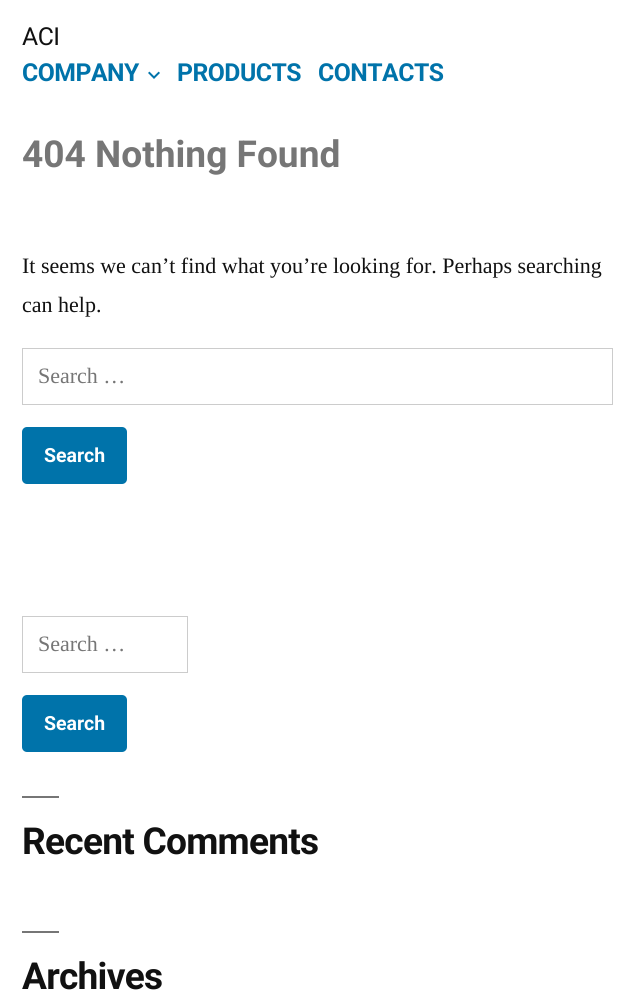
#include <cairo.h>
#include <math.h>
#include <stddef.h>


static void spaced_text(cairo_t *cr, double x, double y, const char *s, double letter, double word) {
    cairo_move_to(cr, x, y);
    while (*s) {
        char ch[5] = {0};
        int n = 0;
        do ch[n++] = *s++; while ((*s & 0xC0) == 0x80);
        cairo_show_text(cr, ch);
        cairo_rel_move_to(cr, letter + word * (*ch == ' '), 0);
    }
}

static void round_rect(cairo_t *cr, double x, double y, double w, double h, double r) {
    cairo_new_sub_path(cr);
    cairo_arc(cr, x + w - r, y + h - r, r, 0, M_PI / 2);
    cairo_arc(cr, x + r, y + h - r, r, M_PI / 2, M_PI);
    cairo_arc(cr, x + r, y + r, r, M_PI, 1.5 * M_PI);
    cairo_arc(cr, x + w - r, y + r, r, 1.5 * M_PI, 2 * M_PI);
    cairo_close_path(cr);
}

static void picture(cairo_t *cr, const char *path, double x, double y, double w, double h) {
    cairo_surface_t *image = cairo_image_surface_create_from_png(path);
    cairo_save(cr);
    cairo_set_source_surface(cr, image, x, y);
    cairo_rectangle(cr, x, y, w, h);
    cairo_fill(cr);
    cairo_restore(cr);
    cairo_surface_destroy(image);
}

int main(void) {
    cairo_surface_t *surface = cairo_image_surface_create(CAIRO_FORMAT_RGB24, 635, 1005);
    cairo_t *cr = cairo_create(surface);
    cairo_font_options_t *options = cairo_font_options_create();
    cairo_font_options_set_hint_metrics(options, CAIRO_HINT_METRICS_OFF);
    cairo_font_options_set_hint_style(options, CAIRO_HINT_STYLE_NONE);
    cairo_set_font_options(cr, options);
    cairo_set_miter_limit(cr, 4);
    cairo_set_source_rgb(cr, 1, 1, 1);
    cairo_paint(cr);
    cairo_select_font_face(cr, "Roboto", CAIRO_FONT_SLANT_NORMAL, CAIRO_FONT_WEIGHT_NORMAL);
    cairo_set_font_size(cr, 24.75);
    cairo_set_source_rgb(cr, 0.067, 0.067, 0.067);
    spaced_text(cr, 22, 45, "ACI", -0.5, 0);
    cairo_select_font_face(cr, "Roboto", CAIRO_FONT_SLANT_NORMAL, CAIRO_FONT_WEIGHT_BOLD);
    cairo_set_source_rgb(cr, 0, 0.451, 0.667);
    spaced_text(cr, 22, 81, "COMPANY", -0.5, 0);
    picture(cr, "img1.png", 148, 71, 12, 8);
    spaced_text(cr, 177, 81, "PRODUCTS", -0.5, 0);
    spaced_text(cr, 318, 81, "CONTACTS", -0.5, 0);
    cairo_set_font_size(cr, 37.1);
    cairo_set_source_rgb(cr, 0.463, 0.463, 0.463);
    cairo_move_to(cr, 22, 167);
    cairo_show_text(cr, "404 Nothing Found");
    cairo_select_font_face(cr, "Liberation Serif", CAIRO_FONT_SLANT_NORMAL, CAIRO_FONT_WEIGHT_NORMAL);
    cairo_set_font_size(cr, 22);
    cairo_set_source_rgb(cr, 0.067, 0.067, 0.067);
    cairo_move_to(cr, 22, 273);
    cairo_show_text(cr, "It seems we can’t find what you’re looking for. Perhaps searching");
    cairo_move_to(cr, 22, 312);
    cairo_show_text(cr, "can help.");
    cairo_rectangle(cr, 22.5, 348.5, 590, 56);
    cairo_set_source_rgb(cr, 0.8, 0.8, 0.8);
    cairo_set_line_width(cr, 1);
    cairo_stroke(cr);
    cairo_set_source_rgb(cr, 0.463, 0.463, 0.463);
    cairo_move_to(cr, 38, 383);
    cairo_show_text(cr, "Search …");
    cairo_set_source_rgb(cr, 0, 0.451, 0.667);
    round_rect(cr, 22, 427, 105, 57, 5);
    cairo_fill(cr);
    cairo_select_font_face(cr, "Roboto", CAIRO_FONT_SLANT_NORMAL, CAIRO_FONT_WEIGHT_BOLD);
    cairo_set_font_size(cr, 19.5);
    cairo_set_source_rgb(cr, 1, 1, 1);
    cairo_move_to(cr, 44, 462);
    cairo_show_text(cr, "Search");
    cairo_rectangle(cr, 22.5, 616.5, 165, 56);
    cairo_set_source_rgb(cr, 0.8, 0.8, 0.8);
    cairo_stroke(cr);
    cairo_select_font_face(cr, "Liberation Serif", CAIRO_FONT_SLANT_NORMAL, CAIRO_FONT_WEIGHT_NORMAL);
    cairo_set_font_size(cr, 22);
    cairo_set_source_rgb(cr, 0.463, 0.463, 0.463);
    cairo_move_to(cr, 38, 651);
    cairo_show_text(cr, "Search …");
    cairo_set_source_rgb(cr, 0, 0.451, 0.667);
    round_rect(cr, 22, 695, 105, 57, 5);
    cairo_fill(cr);
    cairo_select_font_face(cr, "Roboto", CAIRO_FONT_SLANT_NORMAL, CAIRO_FONT_WEIGHT_BOLD);
    cairo_set_font_size(cr, 19.5);
    cairo_set_source_rgb(cr, 1, 1, 1);
    cairo_move_to(cr, 44, 730);
    cairo_show_text(cr, "Search");
    cairo_set_source_rgb(cr, 0.463, 0.463, 0.463);
    cairo_rectangle(cr, 22, 796, 37, 2);
    cairo_fill(cr);
    cairo_set_font_size(cr, 37.1);
    cairo_set_source_rgb(cr, 0.067, 0.067, 0.067);
    spaced_text(cr, 22, 854, "Recent Comments", -0.75, 0);
    cairo_set_source_rgb(cr, 0.463, 0.463, 0.463);
    cairo_rectangle(cr, 22, 931, 37, 2);
    cairo_fill(cr);
    cairo_set_source_rgb(cr, 0.067, 0.067, 0.067);
    spaced_text(cr, 22, 989, "Archives", -0.75, 0);
    cairo_surface_write_to_png(surface, "page.png");
    cairo_font_options_destroy(options);
    cairo_destroy(cr);
    cairo_surface_destroy(surface);
    return 0;
}
